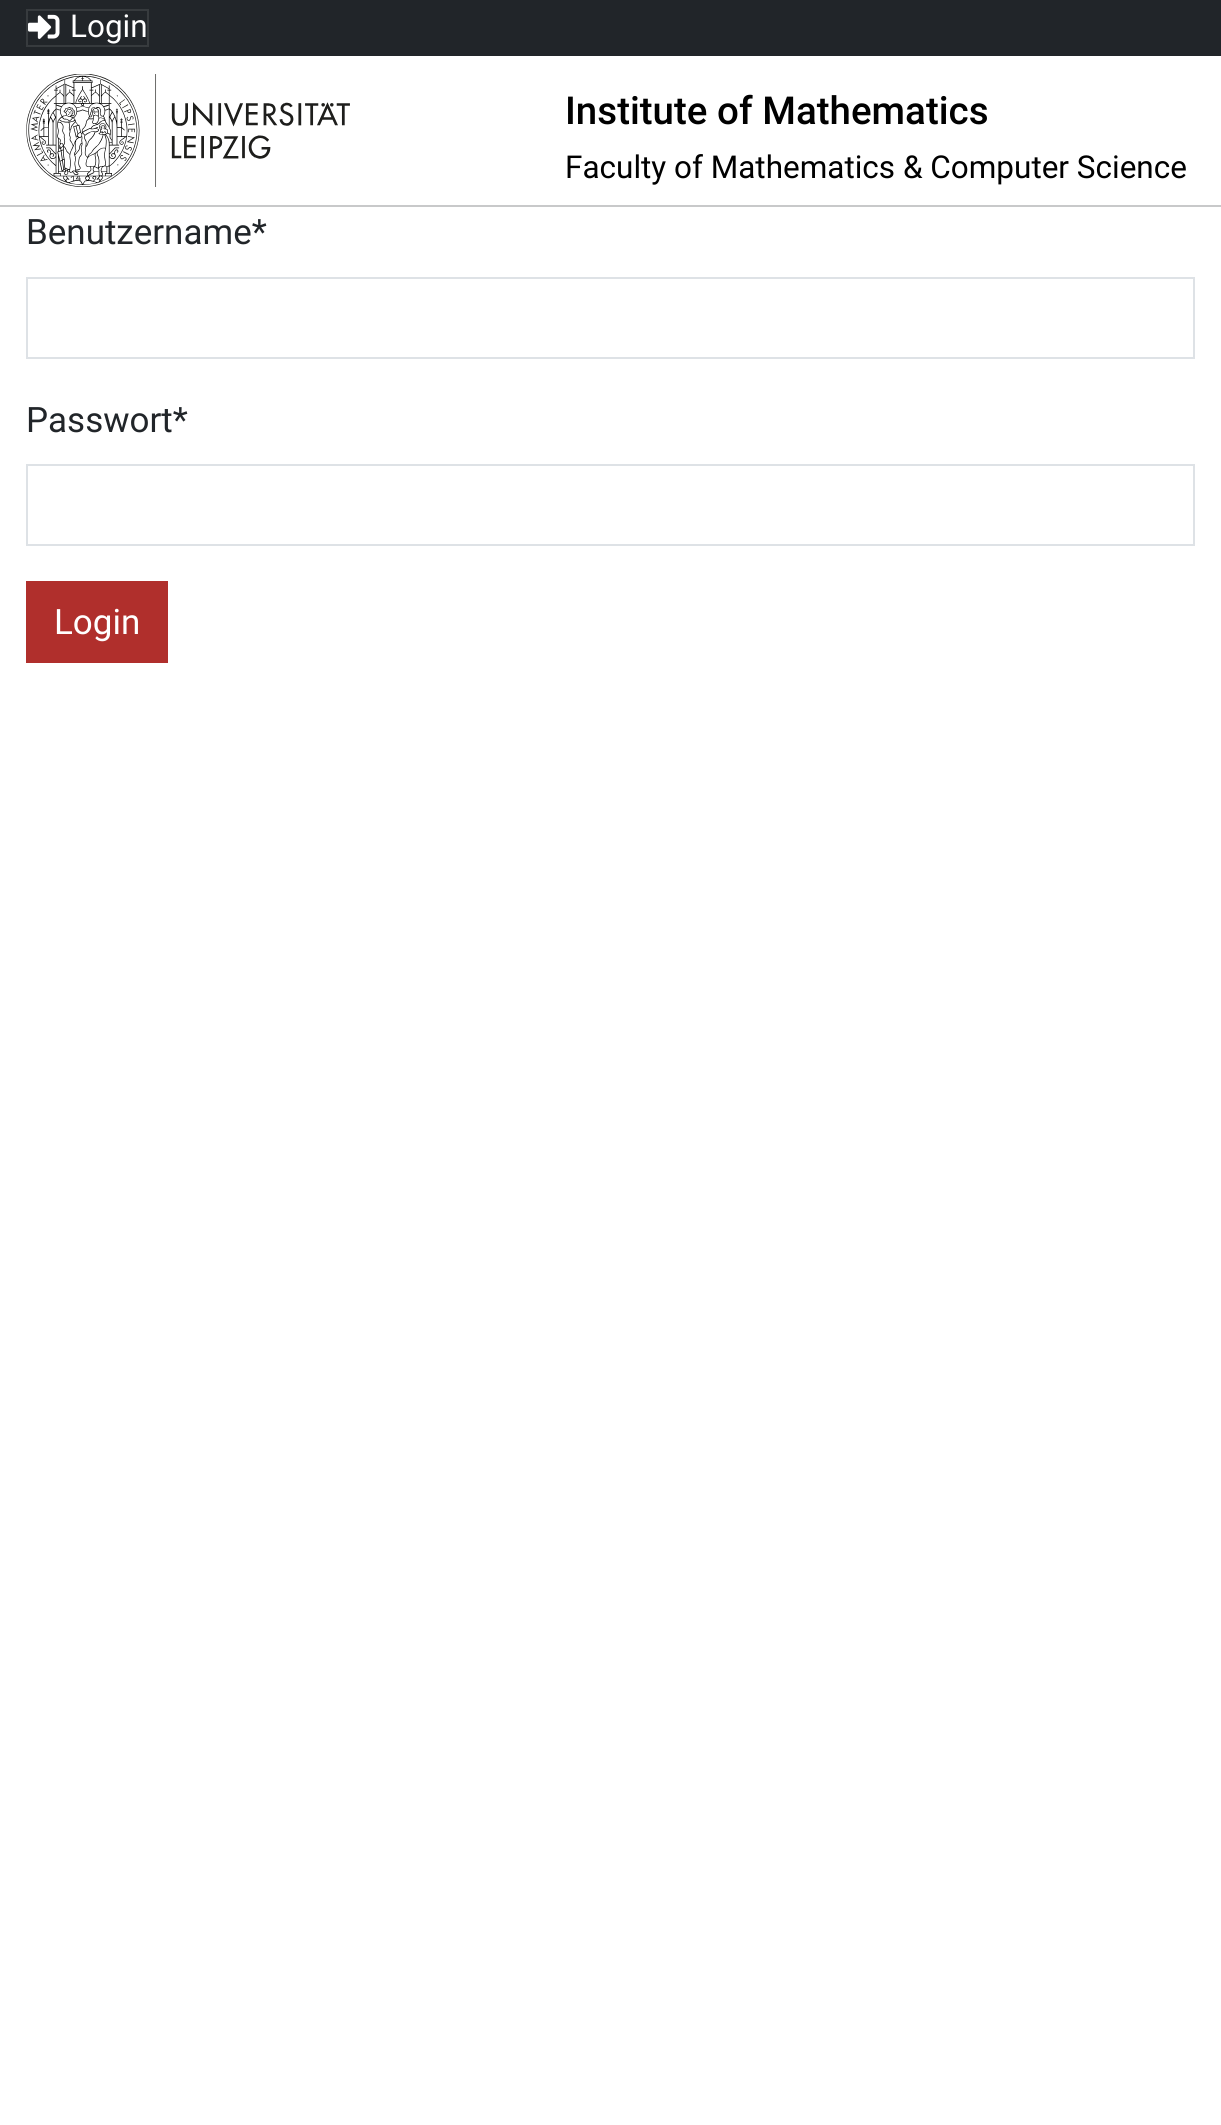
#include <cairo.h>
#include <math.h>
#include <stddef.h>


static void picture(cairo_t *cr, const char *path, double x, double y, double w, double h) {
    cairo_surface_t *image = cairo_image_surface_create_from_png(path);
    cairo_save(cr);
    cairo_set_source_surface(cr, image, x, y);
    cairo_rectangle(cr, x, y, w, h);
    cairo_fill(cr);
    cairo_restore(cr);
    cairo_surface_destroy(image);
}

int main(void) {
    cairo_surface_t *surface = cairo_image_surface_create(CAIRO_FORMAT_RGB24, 1221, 2125);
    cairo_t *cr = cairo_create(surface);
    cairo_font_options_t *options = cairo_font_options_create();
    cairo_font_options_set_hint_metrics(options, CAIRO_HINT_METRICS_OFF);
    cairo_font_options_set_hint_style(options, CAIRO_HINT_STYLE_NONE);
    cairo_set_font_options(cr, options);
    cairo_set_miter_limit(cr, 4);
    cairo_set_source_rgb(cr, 1, 1, 1);
    cairo_paint(cr);
    cairo_set_source_rgb(cr, 0.129, 0.145, 0.161);
    cairo_rectangle(cr, 0, 0, 1221, 56);
    cairo_fill(cr);
    cairo_rectangle(cr, 27, 10, 121, 36);
    cairo_set_source_rgb(cr, 0.216, 0.231, 0.243);
    cairo_stroke(cr);
    picture(cr, "img1.png", 28, 14, 32, 25);
    cairo_select_font_face(cr, "Roboto", CAIRO_FONT_SLANT_NORMAL, CAIRO_FONT_WEIGHT_NORMAL);
    cairo_set_font_size(cr, 31.5);
    cairo_set_source_rgb(cr, 1, 1, 1);
    cairo_move_to(cr, 70, 37);
    cairo_show_text(cr, "Login");
    picture(cr, "img2.png", 26, 74, 324, 113);
    cairo_select_font_face(cr, "Roboto Medium", CAIRO_FONT_SLANT_NORMAL, CAIRO_FONT_WEIGHT_NORMAL);
    cairo_set_font_size(cr, 38.5);
    cairo_set_source_rgb(cr, 0, 0, 0);
    cairo_move_to(cr, 565, 124);
    cairo_show_text(cr, "Institute of Mathematics");
    cairo_select_font_face(cr, "Roboto", CAIRO_FONT_SLANT_NORMAL, CAIRO_FONT_WEIGHT_NORMAL);
    cairo_set_font_size(cr, 31.5);
    cairo_move_to(cr, 565, 178);
    cairo_show_text(cr, "Faculty of Mathematics & Computer Science");
    cairo_set_source_rgb(cr, 0.784, 0.788, 0.792);
    cairo_rectangle(cr, 0, 205, 1221, 2);
    cairo_fill(cr);
    cairo_set_font_size(cr, 35);
    cairo_set_source_rgb(cr, 0.129, 0.145, 0.161);
    cairo_move_to(cr, 26, 244);
    cairo_show_text(cr, "Benutzername*");
    cairo_rectangle(cr, 27, 278, 1167, 80);
    cairo_set_source_rgb(cr, 0.871, 0.886, 0.902);
    cairo_stroke(cr);
    cairo_set_source_rgb(cr, 0.129, 0.145, 0.161);
    cairo_move_to(cr, 26, 432);
    cairo_show_text(cr, "Passwort*");
    cairo_rectangle(cr, 27, 465, 1167, 80);
    cairo_set_source_rgb(cr, 0.871, 0.886, 0.902);
    cairo_stroke(cr);
    cairo_set_source_rgb(cr, 0.69, 0.184, 0.173);
    cairo_rectangle(cr, 26, 581, 142, 82);
    cairo_fill(cr);
    cairo_set_source_rgb(cr, 1, 1, 1);
    cairo_move_to(cr, 54, 634);
    cairo_show_text(cr, "Login");
    cairo_surface_write_to_png(surface, "page.png");
    cairo_font_options_destroy(options);
    cairo_destroy(cr);
    cairo_surface_destroy(surface);
    return 0;
}
